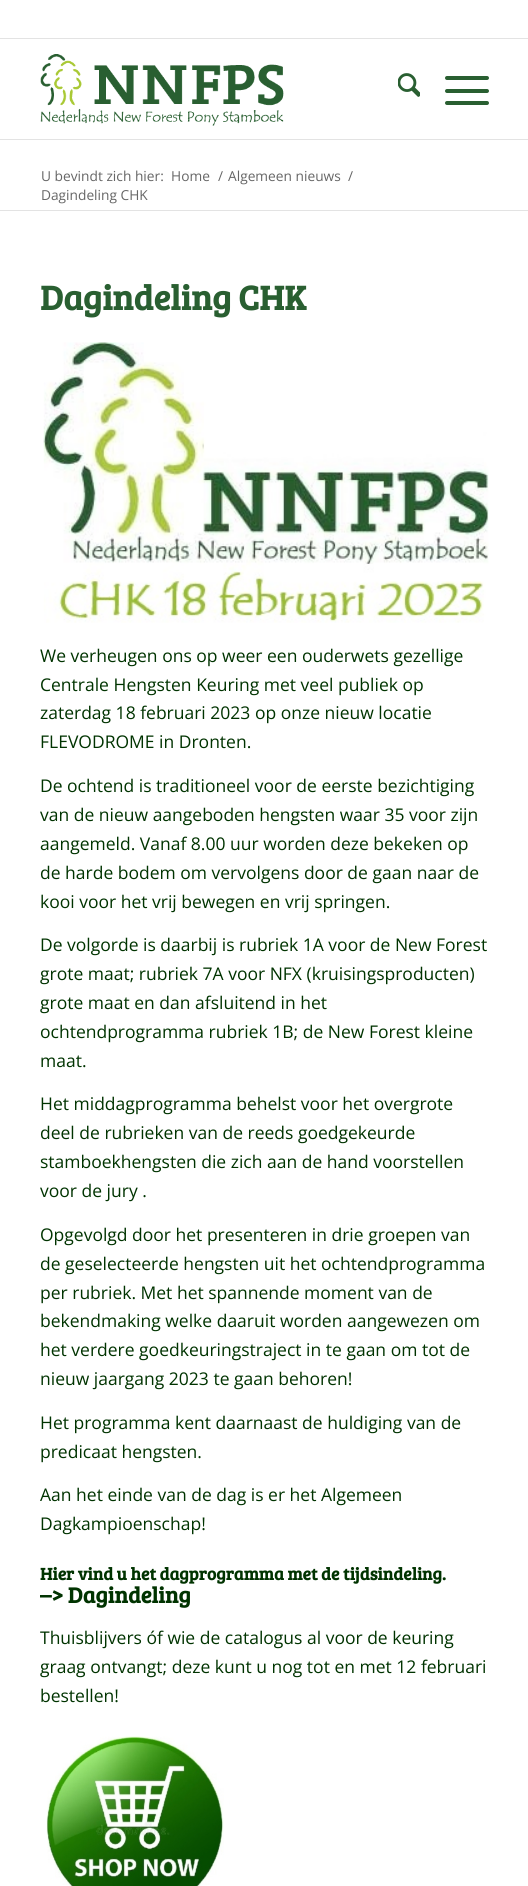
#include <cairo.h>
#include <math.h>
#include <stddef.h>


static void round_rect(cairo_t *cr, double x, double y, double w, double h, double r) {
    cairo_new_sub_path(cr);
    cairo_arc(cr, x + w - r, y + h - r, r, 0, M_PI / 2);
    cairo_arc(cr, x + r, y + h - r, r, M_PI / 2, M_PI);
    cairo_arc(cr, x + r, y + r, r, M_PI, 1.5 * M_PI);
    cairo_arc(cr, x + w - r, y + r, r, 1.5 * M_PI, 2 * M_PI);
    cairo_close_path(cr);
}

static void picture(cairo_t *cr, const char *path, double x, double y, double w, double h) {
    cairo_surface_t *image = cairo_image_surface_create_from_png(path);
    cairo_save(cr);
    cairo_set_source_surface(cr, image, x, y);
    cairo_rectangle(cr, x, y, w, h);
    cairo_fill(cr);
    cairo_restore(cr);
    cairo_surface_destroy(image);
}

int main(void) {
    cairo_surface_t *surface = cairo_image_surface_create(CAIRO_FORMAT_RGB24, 528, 1886);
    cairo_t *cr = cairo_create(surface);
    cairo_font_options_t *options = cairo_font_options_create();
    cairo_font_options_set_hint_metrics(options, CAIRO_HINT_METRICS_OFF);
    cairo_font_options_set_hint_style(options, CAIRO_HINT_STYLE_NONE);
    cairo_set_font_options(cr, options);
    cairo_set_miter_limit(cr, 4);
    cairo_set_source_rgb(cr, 1, 1, 1);
    cairo_paint(cr);
    cairo_set_source_rgb(cr, 0.89, 0.89, 0.89);
    cairo_rectangle(cr, 0, 38, 528, 1);
    cairo_fill(cr);
    cairo_rectangle(cr, 0, 139, 528, 1);
    cairo_fill(cr);
    picture(cr, "img1.png", 40, 54, 244, 72);
    picture(cr, "img2.png", 398, 73, 22, 24);
    cairo_set_source_rgb(cr, 0.161, 0.373, 0.192);
    round_rect(cr, 445, 89, 44, 4, 2);
    cairo_fill(cr);
    round_rect(cr, 445, 76, 44, 4, 2);
    cairo_fill(cr);
    round_rect(cr, 445, 101, 44, 4, 2);
    cairo_fill(cr);
    cairo_select_font_face(cr, "Open Sans", CAIRO_FONT_SLANT_NORMAL, CAIRO_FONT_WEIGHT_NORMAL);
    cairo_set_font_size(cr, 13.75);
    cairo_set_source_rgb(cr, 0.4, 0.4, 0.4);
    cairo_move_to(cr, 41, 181);
    cairo_show_text(cr, "U bevindt zich hier:");
    cairo_move_to(cr, 171, 181);
    cairo_show_text(cr, "Home");
    cairo_move_to(cr, 218, 181);
    cairo_show_text(cr, "/");
    cairo_move_to(cr, 228, 181);
    cairo_show_text(cr, "Algemeen nieuws");
    cairo_move_to(cr, 348, 181);
    cairo_show_text(cr, "/");
    cairo_move_to(cr, 41, 200);
    cairo_show_text(cr, "Dagindeling CHK");
    cairo_set_source_rgb(cr, 0.89, 0.89, 0.89);
    cairo_rectangle(cr, 0, 210, 528, 1);
    cairo_fill(cr);
    cairo_select_font_face(cr, "Bree Serif", CAIRO_FONT_SLANT_NORMAL, CAIRO_FONT_WEIGHT_BOLD);
    cairo_set_font_size(cr, 35);
    cairo_set_source_rgb(cr, 0.161, 0.373, 0.192);
    cairo_move_to(cr, 40, 310);
    cairo_show_text(cr, "Dagindeling CHK");
    picture(cr, "img3.png", 43, 342, 446, 281);
    cairo_select_font_face(cr, "Open Sans", CAIRO_FONT_SLANT_NORMAL, CAIRO_FONT_WEIGHT_NORMAL);
    cairo_set_font_size(cr, 17.5);
    cairo_set_source_rgb(cr, 0, 0.2, 0);
    cairo_move_to(cr, 40, 662);
    cairo_show_text(cr, "We verheugen ons op weer een ouderwets gezellige");
    cairo_move_to(cr, 40, 691);
    cairo_show_text(cr, "Centrale Hengsten Keuring met veel publiek op");
    cairo_move_to(cr, 40, 719);
    cairo_show_text(cr, "zaterdag 18 februari 2023 op onze nieuw locatie");
    cairo_move_to(cr, 40, 748);
    cairo_show_text(cr, "FLEVODROME in Dronten.");
    cairo_move_to(cr, 40, 792);
    cairo_show_text(cr, "De ochtend is traditioneel voor de eerste bezichtiging");
    cairo_move_to(cr, 40, 821);
    cairo_show_text(cr, "van de nieuw aangeboden hengsten waar 35 voor zijn");
    cairo_move_to(cr, 40, 850);
    cairo_show_text(cr, "aangemeld. Vanaf 8.00 uur worden deze bekeken op");
    cairo_move_to(cr, 40, 879);
    cairo_show_text(cr, "de harde bodem om vervolgens door de gaan naar de");
    cairo_move_to(cr, 40, 908);
    cairo_show_text(cr, "kooi voor het vrij bewegen en vrij springen.");
    cairo_move_to(cr, 40, 951);
    cairo_show_text(cr, "De volgorde is daarbij is rubriek 1A voor de New Forest");
    cairo_move_to(cr, 40, 980);
    cairo_show_text(cr, "grote maat; rubriek 7A voor NFX (kruisingsproducten)");
    cairo_move_to(cr, 40, 1009);
    cairo_show_text(cr, "grote maat en dan afsluitend in het");
    cairo_move_to(cr, 40, 1038);
    cairo_show_text(cr, "ochtendprogramma rubriek 1B; de New Forest kleine");
    cairo_move_to(cr, 40, 1067);
    cairo_show_text(cr, "maat.");
    cairo_move_to(cr, 40, 1110);
    cairo_show_text(cr, "Het middagprogramma behelst voor het overgrote");
    cairo_move_to(cr, 40, 1139);
    cairo_show_text(cr, "deel de rubrieken van de reeds goedgekeurde");
    cairo_move_to(cr, 40, 1168);
    cairo_show_text(cr, "stamboekhengsten die zich aan de hand voorstellen");
    cairo_move_to(cr, 40, 1197);
    cairo_show_text(cr, "voor de jury .");
    cairo_move_to(cr, 40, 1241);
    cairo_show_text(cr, "Opgevolgd door het presenteren in drie groepen van");
    cairo_move_to(cr, 40, 1270);
    cairo_show_text(cr, "de geselecteerde hengsten uit het ochtendprogramma");
    cairo_move_to(cr, 40, 1299);
    cairo_show_text(cr, "per rubriek. Met het spannende moment van de");
    cairo_move_to(cr, 40, 1327);
    cairo_show_text(cr, "bekendmaking welke daaruit worden aangewezen om");
    cairo_move_to(cr, 40, 1356);
    cairo_show_text(cr, "het verdere goedkeuringstraject in te gaan om tot de");
    cairo_move_to(cr, 40, 1385);
    cairo_show_text(cr, "nieuw jaargang 2023 te gaan behoren!");
    cairo_move_to(cr, 40, 1429);
    cairo_show_text(cr, "Het programma kent daarnaast de huldiging van de");
    cairo_move_to(cr, 40, 1458);
    cairo_show_text(cr, "predicaat hengsten.");
    cairo_move_to(cr, 40, 1501);
    cairo_show_text(cr, "Aan het einde van de dag is er het Algemeen");
    cairo_move_to(cr, 40, 1530);
    cairo_show_text(cr, "Dagkampioenschap!");
    cairo_select_font_face(cr, "Bree Serif", CAIRO_FONT_SLANT_NORMAL, CAIRO_FONT_WEIGHT_BOLD);
    cairo_move_to(cr, 40, 1580);
    cairo_show_text(cr, "Hier vind u het dagprogramma met de tijdsindeling.");
    cairo_save(cr);
    cairo_rectangle(cr, 40, 274, 449, 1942);
    cairo_clip(cr);
    cairo_set_font_size(cr, 22.5);
    cairo_move_to(cr, 40, 1603);
    cairo_show_text(cr, "–> Dagindeling");
    cairo_restore(cr);
    cairo_select_font_face(cr, "Open Sans", CAIRO_FONT_SLANT_NORMAL, CAIRO_FONT_WEIGHT_NORMAL);
    cairo_move_to(cr, 40, 1644);
    cairo_show_text(cr, "Thuisblijvers óf wie de catalogus al voor de keuring");
    cairo_move_to(cr, 40, 1673);
    cairo_show_text(cr, "graag ontvangt; deze kunt u nog tot en met 12 februari");
    cairo_move_to(cr, 40, 1702);
    cairo_show_text(cr, "bestellen!");
    picture(cr, "img4.png", 46, 1736, 178, 150);
    cairo_surface_write_to_png(surface, "page.png");
    cairo_font_options_destroy(options);
    cairo_destroy(cr);
    cairo_surface_destroy(surface);
    return 0;
}
